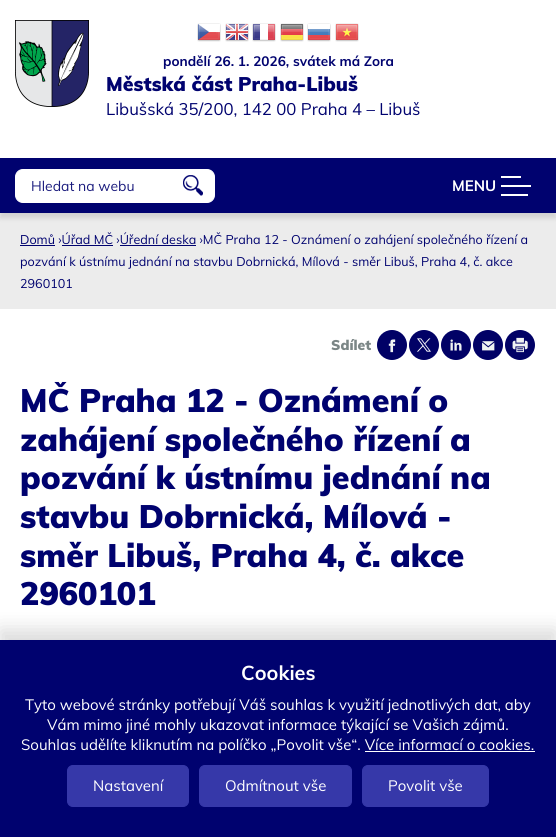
#include <cairo.h>
#include <math.h>
#include <stddef.h>


static void round_rect(cairo_t *cr, double x, double y, double w, double h, double r) {
    cairo_new_sub_path(cr);
    cairo_arc(cr, x + w - r, y + h - r, r, 0, M_PI / 2);
    cairo_arc(cr, x + r, y + h - r, r, M_PI / 2, M_PI);
    cairo_arc(cr, x + r, y + r, r, M_PI, 1.5 * M_PI);
    cairo_arc(cr, x + w - r, y + r, r, 1.5 * M_PI, 2 * M_PI);
    cairo_close_path(cr);
}

static void shadow(cairo_t *cr, double x, double y, double w, double h, double r, double blur, double alpha) {
    cairo_push_group_with_content(cr, CAIRO_CONTENT_ALPHA);
    cairo_set_operator(cr, CAIRO_OPERATOR_SOURCE);
    for (int i = 15; i >= -15 && fmin(w, h) + blur * i / 3 > 0; i -= 2) {
        double e = blur * i / 6;
        cairo_set_source_rgba(cr, 0, 0, 0, alpha * erfc((i - 1) / 8.5) / 2);
        round_rect(cr, x - e, y - e, w + 2 * e, h + 2 * e, fmax(0, fmin(r + e + blur * .6, fmin(w, h) / 2 + e)));
        cairo_fill(cr);
    }
    cairo_pattern_t *soft = cairo_pop_group(cr);
    cairo_mask(cr, soft);
    cairo_pattern_destroy(soft);
}

static void picture(cairo_t *cr, const char *path, double x, double y, double w, double h) {
    cairo_surface_t *image = cairo_image_surface_create_from_png(path);
    cairo_save(cr);
    cairo_set_source_surface(cr, image, x, y);
    cairo_rectangle(cr, x, y, w, h);
    cairo_fill(cr);
    cairo_restore(cr);
    cairo_surface_destroy(image);
}

int main(void) {
    cairo_surface_t *surface = cairo_image_surface_create(CAIRO_FORMAT_RGB24, 556, 837);
    cairo_t *cr = cairo_create(surface);
    cairo_font_options_t *options = cairo_font_options_create();
    cairo_font_options_set_hint_metrics(options, CAIRO_HINT_METRICS_OFF);
    cairo_font_options_set_hint_style(options, CAIRO_HINT_STYLE_NONE);
    cairo_set_font_options(cr, options);
    cairo_set_miter_limit(cr, 4);
    cairo_set_source_rgb(cr, 1, 1, 1);
    cairo_paint(cr);
    picture(cr, "img1.png", 15, 20, 74, 87);
    picture(cr, "img2.png", 197, 23, 24, 19);
    picture(cr, "img3.png", 225, 23, 24, 19);
    picture(cr, "img4.png", 252, 23, 24, 19);
    picture(cr, "img5.png", 280, 23, 24, 19);
    picture(cr, "img6.png", 307, 23, 24, 19);
    picture(cr, "img7.png", 335, 23, 24, 19);
    cairo_select_font_face(cr, "Muli", CAIRO_FONT_SLANT_NORMAL, CAIRO_FONT_WEIGHT_BOLD);
    cairo_set_font_size(cr, 13.6);
    cairo_set_source_rgb(cr, 0, 0.008, 0.435);
    cairo_move_to(cr, 163, 66);
    cairo_show_text(cr, "pondělí 26. 1. 2026, svátek má Zora");
    cairo_select_font_face(cr, "Muli Black", CAIRO_FONT_SLANT_NORMAL, CAIRO_FONT_WEIGHT_NORMAL);
    cairo_set_font_size(cr, 19.6);
    cairo_move_to(cr, 106, 91);
    cairo_show_text(cr, "Městská část Praha-Libuš");
    cairo_select_font_face(cr, "Muli", CAIRO_FONT_SLANT_NORMAL, CAIRO_FONT_WEIGHT_NORMAL);
    cairo_set_font_size(cr, 16.75);
    cairo_move_to(cr, 106, 115);
    cairo_show_text(cr, "Libušská 35/200, 142 00 Praha 4 – Libuš");
    cairo_set_source_rgb(cr, 0.925, 0.925, 0.925);
    cairo_rectangle(cr, 0, 213, 556, 96);
    cairo_fill(cr);
    cairo_set_source_rgb(cr, 0.196, 0.196, 0.196);
    shadow(cr, 0, 163, 556, 55, 0, 2.5, 0.15);
    cairo_set_source_rgb(cr, 0, 0.008, 0.435);
    cairo_rectangle(cr, 0, 158, 556, 55);
    cairo_fill(cr);
    cairo_set_source_rgb(cr, 1, 1, 1);
    round_rect(cr, 15.5, 169.5, 199, 33, 7.5);
    cairo_fill_preserve(cr);
    cairo_set_line_width(cr, 1);
    cairo_stroke(cr);
    cairo_set_font_size(cr, 14);
    cairo_set_source_rgb(cr, 0.102, 0.106, 0.49);
    cairo_move_to(cr, 31, 191);
    cairo_show_text(cr, "Hledat na webu");
    picture(cr, "img8.png", 183, 175, 20, 21);
    cairo_select_font_face(cr, "Muli", CAIRO_FONT_SLANT_NORMAL, CAIRO_FONT_WEIGHT_BOLD);
    cairo_set_font_size(cr, 15);
    cairo_set_source_rgb(cr, 1, 1, 1);
    cairo_move_to(cr, 452, 191);
    cairo_show_text(cr, "MENU");
    cairo_rectangle(cr, 501, 176, 20, 2);
    cairo_fill(cr);
    cairo_rectangle(cr, 501, 185, 30, 2);
    cairo_fill(cr);
    cairo_rectangle(cr, 501, 194, 27, 2);
    cairo_fill(cr);
    cairo_set_source_rgb(cr, 0, 0.008, 0.435);
    cairo_rectangle(cr, 20, 245, 35, 1);
    cairo_fill(cr);
    cairo_select_font_face(cr, "Muli", CAIRO_FONT_SLANT_NORMAL, CAIRO_FONT_WEIGHT_NORMAL);
    cairo_set_font_size(cr, 12.6);
    cairo_move_to(cr, 20, 244);
    cairo_show_text(cr, "Domů ›Úřad MČ ›Úřední deska ›MČ Praha 12 - Oznámení o zahájení společného řízení a");
    cairo_rectangle(cr, 62, 245, 51, 1);
    cairo_fill(cr);
    cairo_rectangle(cr, 120, 245, 76, 1);
    cairo_fill(cr);
    cairo_move_to(cr, 20, 266);
    cairo_show_text(cr, "pozvání k ústnímu jednání na stavbu Dobrnická, Mílová - směr Libuš, Praha 4, č. akce");
    cairo_move_to(cr, 20, 288);
    cairo_show_text(cr, "2960101");
    cairo_select_font_face(cr, "Muli Black", CAIRO_FONT_SLANT_NORMAL, CAIRO_FONT_WEIGHT_NORMAL);
    cairo_set_font_size(cr, 14);
    cairo_set_source_rgb(cr, 0.482, 0.525, 0.525);
    cairo_move_to(cr, 331, 350);
    cairo_show_text(cr, "Sdílet");
    cairo_set_source_rgb(cr, 0.004, 0.004, 0.4);
    cairo_new_path(cr);
    cairo_arc(cr, 392, 345, 15, 0, 2 * M_PI);
    cairo_fill(cr);
    picture(cr, "img9.png", 388, 339, 8, 14);
    cairo_arc(cr, 424, 345, 15, 0, 2 * M_PI);
    cairo_fill(cr);
    picture(cr, "img10.png", 417, 338, 14, 14);
    cairo_arc(cr, 456, 345, 15, 0, 2 * M_PI);
    cairo_fill(cr);
    picture(cr, "img11.png", 450, 339, 12, 12);
    cairo_arc(cr, 488, 345, 15, 0, 2 * M_PI);
    cairo_fill(cr);
    picture(cr, "img12.png", 482, 341, 13, 10);
    cairo_arc(cr, 520, 345, 15, 0, 2 * M_PI);
    cairo_fill(cr);
    picture(cr, "img13.png", 512, 337, 16, 16);
    cairo_set_font_size(cr, 32.25);
    cairo_set_source_rgb(cr, 0, 0.008, 0.435);
    cairo_move_to(cr, 20, 412);
    cairo_show_text(cr, "MČ Praha 12 - Oznámení o");
    cairo_move_to(cr, 20, 451);
    cairo_show_text(cr, "zahájení společného řízení a");
    cairo_move_to(cr, 20, 489);
    cairo_show_text(cr, "pozvání k ústnímu jednání na");
    cairo_move_to(cr, 20, 528);
    cairo_show_text(cr, "stavbu Dobrnická, Mílová -");
    cairo_move_to(cr, 20, 567);
    cairo_show_text(cr, "směr Libuš, Praha 4, č. akce");
    cairo_move_to(cr, 20, 605);
    cairo_show_text(cr, "2960101");
    cairo_set_source_rgb(cr, 0, 0, 0);
    shadow(cr, 0, 630, 556, 197, 0, 10, 0.15);
    cairo_set_source_rgb(cr, 0, 0.008, 0.435);
    cairo_rectangle(cr, 0, 640, 556, 197);
    cairo_fill(cr);
    cairo_select_font_face(cr, "Muli", CAIRO_FONT_SLANT_NORMAL, CAIRO_FONT_WEIGHT_BOLD);
    cairo_set_font_size(cr, 20);
    cairo_set_source_rgb(cr, 1, 1, 1);
    cairo_move_to(cr, 241, 680);
    cairo_show_text(cr, "Cookies");
    cairo_select_font_face(cr, "Muli", CAIRO_FONT_SLANT_NORMAL, CAIRO_FONT_WEIGHT_NORMAL);
    cairo_set_font_size(cr, 15);
    cairo_move_to(cr, 25, 710);
    cairo_show_text(cr, "Tyto webové stránky potřebují Váš souhlas k využití jednotlivých dat, aby");
    cairo_move_to(cr, 47, 730);
    cairo_show_text(cr, "Vám mimo jiné mohly ukazovat informace týkající se Vašich zájmů.");
    cairo_move_to(cr, 21, 750);
    cairo_show_text(cr, "Souhlas udělíte kliknutím na políčko „Povolit vše“. Více informací o cookies.");
    cairo_rectangle(cr, 365, 751, 170, 1);
    cairo_fill(cr);
    cairo_set_source_rgb(cr, 0.212, 0.22, 0.663);
    round_rect(cr, 67.5, 765.5, 121, 41, 5.5);
    cairo_fill_preserve(cr);
    cairo_stroke(cr);
    cairo_set_source_rgb(cr, 1, 1, 1);
    cairo_move_to(cr, 93, 791);
    cairo_show_text(cr, "Nastavení");
    cairo_set_source_rgb(cr, 0.212, 0.22, 0.663);
    round_rect(cr, 199.5, 765.5, 152, 41, 5.5);
    cairo_fill_preserve(cr);
    cairo_stroke(cr);
    cairo_set_source_rgb(cr, 1, 1, 1);
    cairo_move_to(cr, 225, 791);
    cairo_show_text(cr, "Odmítnout vše");
    cairo_set_source_rgb(cr, 0.212, 0.22, 0.663);
    round_rect(cr, 362.5, 765.5, 126, 41, 5.5);
    cairo_fill_preserve(cr);
    cairo_stroke(cr);
    cairo_set_source_rgb(cr, 1, 1, 1);
    cairo_move_to(cr, 388, 791);
    cairo_show_text(cr, "Povolit vše");
    cairo_surface_write_to_png(surface, "page.png");
    cairo_font_options_destroy(options);
    cairo_destroy(cr);
    cairo_surface_destroy(surface);
    return 0;
}
